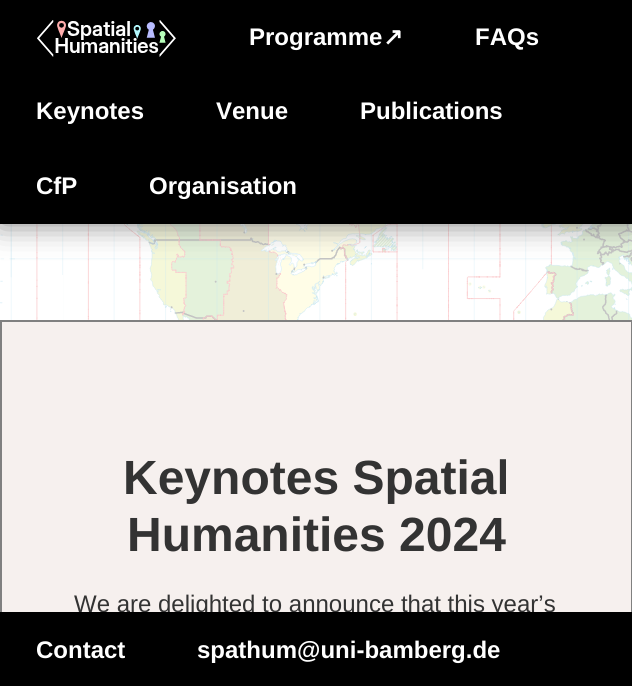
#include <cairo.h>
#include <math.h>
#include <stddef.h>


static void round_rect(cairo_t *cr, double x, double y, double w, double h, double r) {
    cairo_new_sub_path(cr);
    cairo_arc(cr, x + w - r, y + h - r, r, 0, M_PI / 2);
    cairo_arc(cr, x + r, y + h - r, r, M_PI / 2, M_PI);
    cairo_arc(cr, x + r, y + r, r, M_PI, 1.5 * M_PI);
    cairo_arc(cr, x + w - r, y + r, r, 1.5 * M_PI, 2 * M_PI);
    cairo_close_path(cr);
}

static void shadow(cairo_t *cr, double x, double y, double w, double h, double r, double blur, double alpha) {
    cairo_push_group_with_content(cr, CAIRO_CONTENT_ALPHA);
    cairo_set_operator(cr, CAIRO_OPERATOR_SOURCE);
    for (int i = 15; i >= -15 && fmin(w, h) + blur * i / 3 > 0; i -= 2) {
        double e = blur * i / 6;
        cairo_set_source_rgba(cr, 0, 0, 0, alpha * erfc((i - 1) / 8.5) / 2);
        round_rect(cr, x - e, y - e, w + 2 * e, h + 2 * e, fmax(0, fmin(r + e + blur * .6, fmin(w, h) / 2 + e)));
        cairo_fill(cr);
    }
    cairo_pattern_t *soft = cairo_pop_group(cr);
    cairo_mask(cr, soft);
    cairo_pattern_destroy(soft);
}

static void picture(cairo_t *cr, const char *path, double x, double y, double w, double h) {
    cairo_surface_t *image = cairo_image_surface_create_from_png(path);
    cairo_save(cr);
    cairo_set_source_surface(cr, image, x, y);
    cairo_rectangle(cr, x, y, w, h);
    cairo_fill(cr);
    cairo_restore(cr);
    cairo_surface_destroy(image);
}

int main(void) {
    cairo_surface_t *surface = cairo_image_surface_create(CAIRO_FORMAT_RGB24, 632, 686);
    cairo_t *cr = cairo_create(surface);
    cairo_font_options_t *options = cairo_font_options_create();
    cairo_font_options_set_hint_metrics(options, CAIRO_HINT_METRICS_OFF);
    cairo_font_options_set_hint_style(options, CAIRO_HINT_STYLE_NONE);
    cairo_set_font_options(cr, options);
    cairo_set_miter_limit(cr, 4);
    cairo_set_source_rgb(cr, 1, 1, 1);
    cairo_paint(cr);
    picture(cr, "img1.png", 0, 224, 632, 96);
    cairo_set_source_rgb(cr, 0.502, 0.502, 0.502);
    shadow(cr, 0, 0, 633, 224, 0, 15, 1);
    cairo_set_source_rgb(cr, 0, 0, 0);
    cairo_rectangle(cr, 0, 0, 632, 224);
    cairo_fill(cr);
    picture(cr, "img2.png", 37, 20, 139, 37);
    cairo_select_font_face(cr, "Liberation Sans", CAIRO_FONT_SLANT_NORMAL, CAIRO_FONT_WEIGHT_BOLD);
    cairo_set_font_size(cr, 24);
    cairo_set_source_rgb(cr, 1, 1, 1);
    cairo_move_to(cr, 249, 45);
    cairo_show_text(cr, "Programme");
    cairo_select_font_face(cr, "DejaVu Sans", CAIRO_FONT_SLANT_NORMAL, CAIRO_FONT_WEIGHT_BOLD);
    cairo_move_to(cr, 383, 45);
    cairo_show_text(cr, "↗");
    cairo_select_font_face(cr, "Liberation Sans", CAIRO_FONT_SLANT_NORMAL, CAIRO_FONT_WEIGHT_BOLD);
    cairo_move_to(cr, 475, 45);
    cairo_show_text(cr, "FAQs");
    cairo_move_to(cr, 36, 119);
    cairo_show_text(cr, "Keynotes");
    cairo_move_to(cr, 216, 119);
    cairo_show_text(cr, "Venue");
    cairo_move_to(cr, 360, 119);
    cairo_show_text(cr, "Publications");
    cairo_move_to(cr, 36, 194);
    cairo_show_text(cr, "CfP");
    cairo_move_to(cr, 149, 194);
    cairo_show_text(cr, "Organisation");
    cairo_set_source_rgb(cr, 0.961, 0.941, 0.933);
    cairo_rectangle(cr, 2, 322, 629, 290);
    cairo_fill(cr);
    cairo_set_source_rgb(cr, 0, 0, 0);
    cairo_rectangle(cr, 0, 612, 632, 74);
    cairo_fill(cr);
    cairo_save(cr);
    cairo_rectangle(cr, 0, 224, 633, 388);
    cairo_clip(cr);
    cairo_rectangle(cr, 1, 321, 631, 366);
    cairo_set_source_rgb(cr, 0.502, 0.502, 0.502);
    cairo_stroke(cr);
    cairo_restore(cr);
    cairo_set_font_size(cr, 48);
    cairo_set_source_rgb(cr, 0.2, 0.2, 0.2);
    cairo_move_to(cr, 123, 494);
    cairo_show_text(cr, "Keynotes Spatial");
    cairo_move_to(cr, 127, 551);
    cairo_show_text(cr, "Humanities 2024");
    cairo_save(cr);
    cairo_rectangle(cr, 0, 224, 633, 388);
    cairo_clip(cr);
    cairo_select_font_face(cr, "Liberation Sans", CAIRO_FONT_SLANT_NORMAL, CAIRO_FONT_WEIGHT_NORMAL);
    cairo_set_font_size(cr, 24);
    cairo_move_to(cr, 74, 612);
    cairo_show_text(cr, "We are delighted to announce that this year’s");
    cairo_restore(cr);
    cairo_set_font_size(cr, 24);
    cairo_set_source_rgb(cr, 1, 1, 1);
    cairo_move_to(cr, 36, 658);
    cairo_show_text(cr, "Contact");
    cairo_move_to(cr, 197, 658);
    cairo_show_text(cr, "spathum@uni-bamberg.de");
    cairo_surface_write_to_png(surface, "page.png");
    cairo_font_options_destroy(options);
    cairo_destroy(cr);
    cairo_surface_destroy(surface);
    return 0;
}
